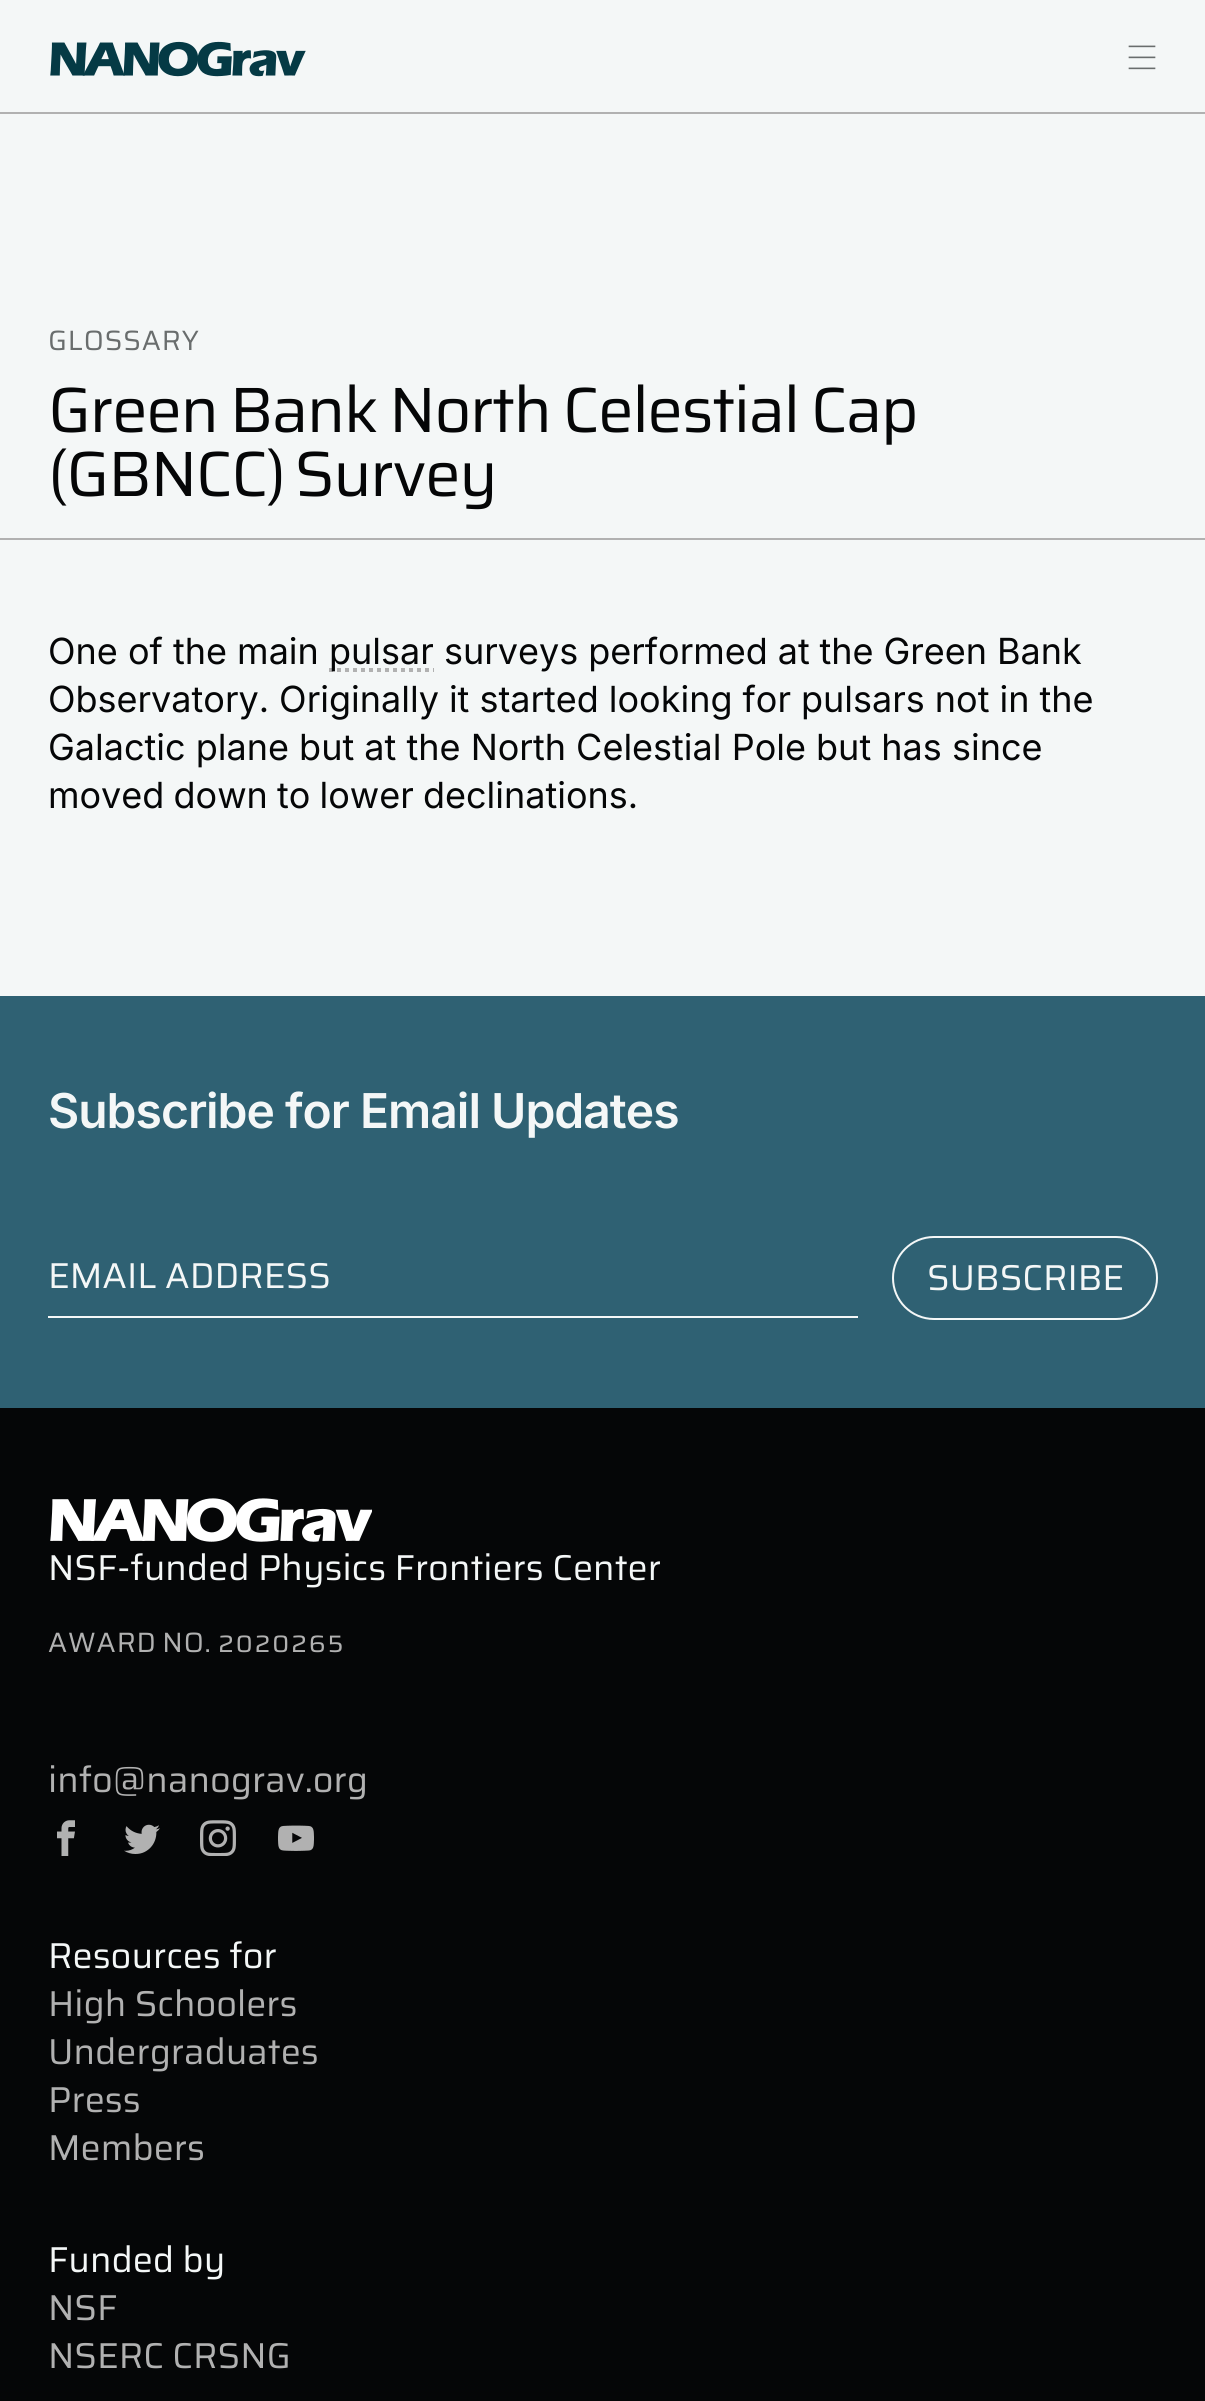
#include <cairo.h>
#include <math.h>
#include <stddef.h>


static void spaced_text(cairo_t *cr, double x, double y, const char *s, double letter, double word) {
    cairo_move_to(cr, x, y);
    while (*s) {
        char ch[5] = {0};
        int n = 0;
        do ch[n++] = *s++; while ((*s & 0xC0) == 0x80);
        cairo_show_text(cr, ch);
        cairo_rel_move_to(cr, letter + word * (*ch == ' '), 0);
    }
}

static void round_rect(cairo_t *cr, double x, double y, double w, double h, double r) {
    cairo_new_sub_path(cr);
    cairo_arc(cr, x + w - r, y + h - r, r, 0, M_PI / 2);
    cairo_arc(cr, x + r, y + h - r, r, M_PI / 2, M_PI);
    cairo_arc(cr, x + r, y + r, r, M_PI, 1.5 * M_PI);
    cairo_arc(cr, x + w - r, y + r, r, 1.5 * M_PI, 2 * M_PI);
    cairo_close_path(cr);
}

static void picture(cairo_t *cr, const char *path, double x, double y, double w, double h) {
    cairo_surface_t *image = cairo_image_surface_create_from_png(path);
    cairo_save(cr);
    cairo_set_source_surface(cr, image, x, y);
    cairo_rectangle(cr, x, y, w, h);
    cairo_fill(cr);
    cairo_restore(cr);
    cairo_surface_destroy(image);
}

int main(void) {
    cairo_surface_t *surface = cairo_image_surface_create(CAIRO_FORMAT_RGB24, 1205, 2401);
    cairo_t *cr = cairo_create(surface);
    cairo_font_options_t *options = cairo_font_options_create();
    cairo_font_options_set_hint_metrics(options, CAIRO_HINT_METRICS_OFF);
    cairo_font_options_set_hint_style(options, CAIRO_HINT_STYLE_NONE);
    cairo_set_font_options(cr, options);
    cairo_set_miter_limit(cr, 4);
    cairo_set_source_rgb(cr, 0.957, 0.965, 0.965);
    cairo_paint(cr);
    cairo_set_source_rgb(cr, 0.694, 0.694, 0.694);
    cairo_rectangle(cr, 0, 112, 1205, 2);
    cairo_fill(cr);
    picture(cr, "img1.png", 50, 41, 256, 36);
    picture(cr, "img2.png", 1128, 45, 28, 25);
    cairo_rectangle(cr, 0, 538, 1205, 2);
    cairo_fill(cr);
    cairo_select_font_face(cr, "Saira", CAIRO_FONT_SLANT_NORMAL, CAIRO_FONT_WEIGHT_NORMAL);
    cairo_set_font_size(cr, 28);
    cairo_set_source_rgb(cr, 0.412, 0.427, 0.427);
    spaced_text(cr, 48, 350, "GLOSSARY", 0.9, 0);
    cairo_set_font_size(cr, 64);
    cairo_set_source_rgb(cr, 0.02, 0.027, 0.031);
    spaced_text(cr, 48, 432, "Green Bank North Celestial Cap", -1.4, -1.5);
    spaced_text(cr, 48, 496, "(GBNCC) Survey", -1.4, -4);
    cairo_select_font_face(cr, "Inter", CAIRO_FONT_SLANT_NORMAL, CAIRO_FONT_WEIGHT_NORMAL);
    cairo_set_font_size(cr, 36);
    cairo_move_to(cr, 48, 664);
    cairo_show_text(cr, "One of the main");
    cairo_new_path(cr);
    cairo_move_to(cr, 329, 670);
    cairo_line_to(cr, 434, 670);
    cairo_set_source_rgb(cr, 0.694, 0.694, 0.694);
    cairo_set_line_width(cr, 4);
    cairo_set_dash(cr, (double[]){4, 4}, 2, 0);
    cairo_stroke(cr);
    cairo_set_source_rgb(cr, 0.02, 0.027, 0.031);
    cairo_move_to(cr, 329, 664);
    cairo_show_text(cr, "pulsar");
    spaced_text(cr, 444, 664, "surveys performed at the Green Bank", 0, -0.25);
    spaced_text(cr, 48, 712, "Observatory. Originally it started looking for pulsars not in the", 0, -0.1);
    cairo_move_to(cr, 48, 760);
    cairo_show_text(cr, "Galactic plane but at the North Celestial Pole but has since");
    spaced_text(cr, 48, 808, "moved down to lower declinations.", 0, -1);
    cairo_set_source_rgb(cr, 0.184, 0.38, 0.451);
    cairo_rectangle(cr, 0, 996, 1205, 412);
    cairo_fill(cr);
    cairo_select_font_face(cr, "Inter SemiBold", CAIRO_FONT_SLANT_NORMAL, CAIRO_FONT_WEIGHT_NORMAL);
    cairo_set_font_size(cr, 48);
    cairo_set_source_rgb(cr, 0.957, 0.965, 0.965);
    spaced_text(cr, 48, 1128, "Subscribe for", -1, 0);
    spaced_text(cr, 360, 1128, "Email Updates", -1, 0);
    cairo_rectangle(cr, 48, 1316, 810, 2);
    cairo_fill(cr);
    cairo_select_font_face(cr, "Saira", CAIRO_FONT_SLANT_NORMAL, CAIRO_FONT_WEIGHT_NORMAL);
    cairo_set_font_size(cr, 36);
    cairo_move_to(cr, 48, 1288);
    cairo_show_text(cr, "EMAIL ADDRESS");
    round_rect(cr, 893, 1237, 264, 82, 41);
    cairo_set_line_width(cr, 2);
    cairo_set_dash(cr, NULL, 0, 0);
    cairo_stroke(cr);
    cairo_move_to(cr, 927, 1290);
    cairo_show_text(cr, "SUBSCRIBE");
    cairo_set_source_rgb(cr, 0.02, 0.027, 0.031);
    cairo_rectangle(cr, 0, 1408, 1205, 993);
    cairo_fill(cr);
    picture(cr, "img3.png", 50, 1498, 322, 44);
    cairo_set_source_rgb(cr, 0.957, 0.965, 0.965);
    cairo_move_to(cr, 48, 1580);
    cairo_show_text(cr, "NSF-funded Physics Frontiers Center");
    cairo_select_font_face(cr, "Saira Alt", CAIRO_FONT_SLANT_NORMAL, CAIRO_FONT_WEIGHT_NORMAL);
    cairo_set_font_size(cr, 28);
    cairo_set_source_rgb(cr, 0.694, 0.694, 0.694);
    spaced_text(cr, 48, 1652, "AWARD NO. 2020265", 0.9, -2);
    cairo_select_font_face(cr, "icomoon", CAIRO_FONT_SLANT_NORMAL, CAIRO_FONT_WEIGHT_NORMAL);
    cairo_set_font_size(cr, 24);
    spaced_text(cr, 358, 1652, "", 0.9, 0);
    cairo_select_font_face(cr, "Saira", CAIRO_FONT_SLANT_NORMAL, CAIRO_FONT_WEIGHT_NORMAL);
    cairo_set_font_size(cr, 36);
    cairo_move_to(cr, 48, 1792);
    cairo_show_text(cr, "info@nanograv.org");
    picture(cr, "img4.png", 57, 1820, 18, 36);
    picture(cr, "img5.png", 124, 1824, 36, 30);
    picture(cr, "img6.png", 200, 1820, 36, 36);
    picture(cr, "img7.png", 278, 1825, 36, 26);
    cairo_set_source_rgb(cr, 0.957, 0.965, 0.965);
    cairo_move_to(cr, 48, 1968);
    cairo_show_text(cr, "Resources for");
    cairo_set_source_rgb(cr, 0.694, 0.694, 0.694);
    cairo_move_to(cr, 48, 2016);
    cairo_show_text(cr, "High Schoolers");
    cairo_move_to(cr, 48, 2064);
    cairo_show_text(cr, "Undergraduates");
    cairo_move_to(cr, 48, 2112);
    cairo_show_text(cr, "Press");
    cairo_move_to(cr, 48, 2160);
    cairo_show_text(cr, "Members");
    cairo_set_source_rgb(cr, 0.957, 0.965, 0.965);
    cairo_move_to(cr, 48, 2272);
    cairo_show_text(cr, "Funded by");
    cairo_set_source_rgb(cr, 0.694, 0.694, 0.694);
    cairo_move_to(cr, 48, 2320);
    cairo_show_text(cr, "NSF");
    cairo_select_font_face(cr, "icomoon", CAIRO_FONT_SLANT_NORMAL, CAIRO_FONT_WEIGHT_NORMAL);
    cairo_set_font_size(cr, 24);
    cairo_move_to(cr, 129, 2320);
    cairo_show_text(cr, "");
    cairo_select_font_face(cr, "Saira", CAIRO_FONT_SLANT_NORMAL, CAIRO_FONT_WEIGHT_NORMAL);
    cairo_set_font_size(cr, 36);
    cairo_move_to(cr, 48, 2368);
    cairo_show_text(cr, "NSERC CRSNG");
    cairo_select_font_face(cr, "icomoon", CAIRO_FONT_SLANT_NORMAL, CAIRO_FONT_WEIGHT_NORMAL);
    cairo_set_font_size(cr, 24);
    cairo_move_to(cr, 303, 2368);
    cairo_show_text(cr, "");
    cairo_surface_write_to_png(surface, "page.png");
    cairo_font_options_destroy(options);
    cairo_destroy(cr);
    cairo_surface_destroy(surface);
    return 0;
}
